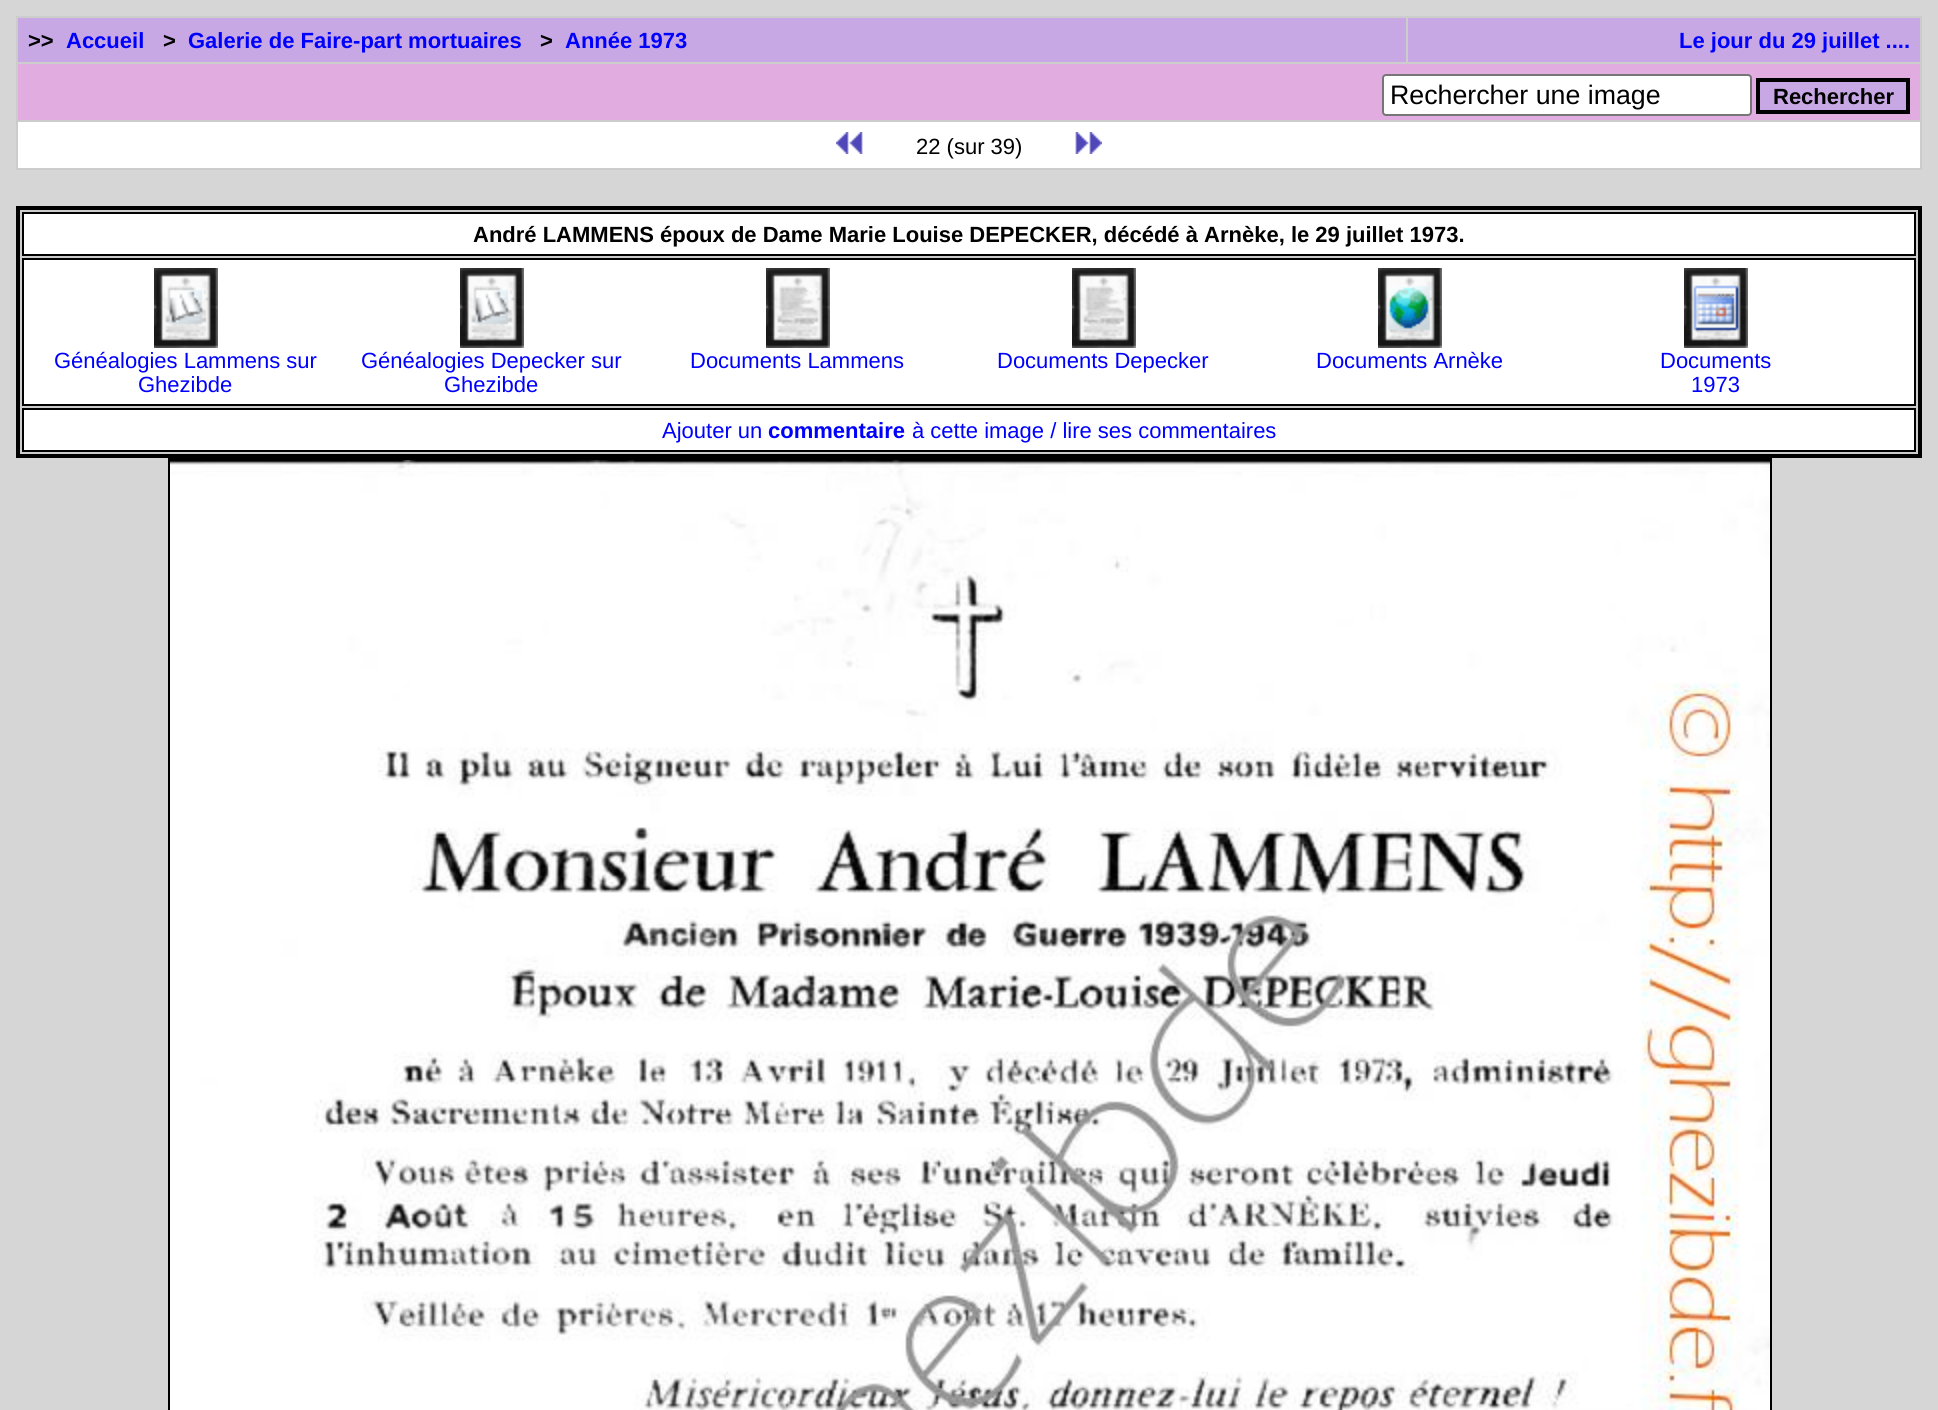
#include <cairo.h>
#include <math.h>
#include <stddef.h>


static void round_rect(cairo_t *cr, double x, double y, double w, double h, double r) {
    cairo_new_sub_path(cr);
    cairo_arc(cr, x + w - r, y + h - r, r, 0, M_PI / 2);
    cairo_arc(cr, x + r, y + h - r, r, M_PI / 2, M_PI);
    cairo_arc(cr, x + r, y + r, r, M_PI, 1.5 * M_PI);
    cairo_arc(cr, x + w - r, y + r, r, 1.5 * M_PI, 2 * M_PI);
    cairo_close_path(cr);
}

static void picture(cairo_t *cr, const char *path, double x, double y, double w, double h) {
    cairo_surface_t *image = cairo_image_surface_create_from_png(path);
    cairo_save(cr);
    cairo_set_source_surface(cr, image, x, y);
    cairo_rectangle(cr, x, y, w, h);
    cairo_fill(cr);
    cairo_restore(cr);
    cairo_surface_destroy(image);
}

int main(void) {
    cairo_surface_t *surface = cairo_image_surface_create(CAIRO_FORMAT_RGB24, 1938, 1410);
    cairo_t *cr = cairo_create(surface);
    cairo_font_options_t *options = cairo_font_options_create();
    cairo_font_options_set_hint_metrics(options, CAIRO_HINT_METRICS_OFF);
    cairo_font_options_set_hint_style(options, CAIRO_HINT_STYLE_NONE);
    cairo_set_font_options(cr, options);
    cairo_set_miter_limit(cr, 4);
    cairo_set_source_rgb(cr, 0.839, 0.839, 0.839);
    cairo_paint(cr);
    cairo_set_source_rgb(cr, 0.8, 0.8, 0.8);
    cairo_rectangle(cr, 16, 16, 1906, 154);
    cairo_fill(cr);
    cairo_set_source_rgb(cr, 0.784, 0.659, 0.894);
    cairo_rectangle(cr, 18, 18, 1388, 44);
    cairo_fill(cr);
    cairo_select_font_face(cr, "Liberation Sans", CAIRO_FONT_SLANT_NORMAL, CAIRO_FONT_WEIGHT_BOLD);
    cairo_set_font_size(cr, 22);
    cairo_set_source_rgb(cr, 0, 0, 0);
    cairo_move_to(cr, 28, 48);
    cairo_show_text(cr, ">>");
    cairo_set_source_rgb(cr, 0, 0, 1);
    cairo_move_to(cr, 66, 48);
    cairo_show_text(cr, "Accueil");
    cairo_set_source_rgb(cr, 0, 0, 0);
    cairo_move_to(cr, 163, 48);
    cairo_show_text(cr, ">");
    cairo_set_source_rgb(cr, 0, 0, 1);
    cairo_move_to(cr, 188, 48);
    cairo_show_text(cr, "Galerie de Faire-part mortuaires");
    cairo_set_source_rgb(cr, 0, 0, 0);
    cairo_move_to(cr, 540, 48);
    cairo_show_text(cr, ">");
    cairo_set_source_rgb(cr, 0, 0, 1);
    cairo_move_to(cr, 565, 48);
    cairo_show_text(cr, "Année 1973");
    cairo_set_source_rgb(cr, 0.784, 0.659, 0.894);
    cairo_rectangle(cr, 1408, 18, 512, 44);
    cairo_fill(cr);
    cairo_set_source_rgb(cr, 0, 0, 1);
    cairo_move_to(cr, 1679, 48);
    cairo_show_text(cr, "Le jour du 29 juillet ....");
    cairo_set_source_rgb(cr, 0.882, 0.678, 0.882);
    cairo_rectangle(cr, 18, 64, 1902, 56);
    cairo_fill(cr);
    cairo_set_source_rgb(cr, 1, 1, 1);
    round_rect(cr, 1383, 75, 368, 40, 3);
    cairo_fill_preserve(cr);
    cairo_set_source_rgb(cr, 0.463, 0.463, 0.463);
    cairo_stroke(cr);
    cairo_select_font_face(cr, "Liberation Sans", CAIRO_FONT_SLANT_NORMAL, CAIRO_FONT_WEIGHT_NORMAL);
    cairo_set_font_size(cr, 26.75);
    cairo_set_source_rgb(cr, 0, 0, 0);
    cairo_move_to(cr, 1390, 104);
    cairo_show_text(cr, "Rechercher une image");
    cairo_set_source_rgb(cr, 0.784, 0.659, 0.894);
    cairo_rectangle(cr, 1758, 80, 150, 32);
    cairo_fill_preserve(cr);
    cairo_set_source_rgb(cr, 0, 0, 0);
    cairo_set_line_width(cr, 4);
    cairo_stroke(cr);
    cairo_select_font_face(cr, "Liberation Sans", CAIRO_FONT_SLANT_NORMAL, CAIRO_FONT_WEIGHT_BOLD);
    cairo_set_font_size(cr, 22);
    cairo_move_to(cr, 1773, 104);
    cairo_show_text(cr, "Rechercher");
    cairo_set_source_rgb(cr, 1, 1, 1);
    cairo_rectangle(cr, 18, 122, 1902, 46);
    cairo_fill(cr);
    picture(cr, "img1.png", 836, 132, 27, 22);
    cairo_select_font_face(cr, "Liberation Sans", CAIRO_FONT_SLANT_NORMAL, CAIRO_FONT_WEIGHT_NORMAL);
    cairo_set_source_rgb(cr, 0, 0, 0);
    cairo_move_to(cr, 916, 154);
    cairo_show_text(cr, "22 (sur 39)");
    picture(cr, "img2.png", 1075, 132, 27, 22);
    cairo_set_source_rgb(cr, 0.8, 0.8, 0.8);
    cairo_rectangle(cr, 18, 208, 1902, 248);
    cairo_fill_preserve(cr);
    cairo_set_source_rgb(cr, 0, 0, 0);
    cairo_stroke(cr);
    cairo_set_source_rgb(cr, 1, 1, 1);
    cairo_rectangle(cr, 23, 213, 1892, 42);
    cairo_fill_preserve(cr);
    cairo_set_source_rgb(cr, 0, 0, 0);
    cairo_set_line_width(cr, 2);
    cairo_stroke(cr);
    cairo_select_font_face(cr, "Liberation Sans", CAIRO_FONT_SLANT_NORMAL, CAIRO_FONT_WEIGHT_BOLD);
    cairo_move_to(cr, 473, 242);
    cairo_show_text(cr, "André LAMMENS époux de Dame Marie Louise DEPECKER, décédé à Arnèke, le 29 juillet 1973.");
    cairo_set_source_rgb(cr, 1, 1, 1);
    cairo_rectangle(cr, 23, 259, 1892, 146);
    cairo_fill_preserve(cr);
    cairo_set_source_rgb(cr, 0, 0, 0);
    cairo_stroke(cr);
    picture(cr, "img3.png", 154, 268, 64, 80);
    cairo_select_font_face(cr, "Liberation Sans", CAIRO_FONT_SLANT_NORMAL, CAIRO_FONT_WEIGHT_NORMAL);
    cairo_set_source_rgb(cr, 0, 0, 1);
    cairo_move_to(cr, 54, 368);
    cairo_show_text(cr, "Généalogies Lammens sur");
    cairo_move_to(cr, 138, 392);
    cairo_show_text(cr, "Ghezibde");
    picture(cr, "img3.png", 460, 268, 64, 80);
    cairo_move_to(cr, 361, 368);
    cairo_show_text(cr, "Généalogies Depecker sur");
    cairo_move_to(cr, 444, 392);
    cairo_show_text(cr, "Ghezibde");
    picture(cr, "img4.png", 766, 268, 64, 80);
    cairo_move_to(cr, 690, 368);
    cairo_show_text(cr, "Documents Lammens");
    picture(cr, "img4.png", 1072, 268, 64, 80);
    cairo_move_to(cr, 997, 368);
    cairo_show_text(cr, "Documents Depecker");
    picture(cr, "img5.png", 1378, 268, 64, 80);
    cairo_move_to(cr, 1316, 368);
    cairo_show_text(cr, "Documents Arnèke");
    picture(cr, "img6.png", 1684, 268, 64, 80);
    cairo_move_to(cr, 1660, 368);
    cairo_show_text(cr, "Documents");
    cairo_move_to(cr, 1691, 392);
    cairo_show_text(cr, "1973");
    cairo_set_source_rgb(cr, 1, 1, 1);
    cairo_rectangle(cr, 23, 409, 1892, 42);
    cairo_fill_preserve(cr);
    cairo_set_source_rgb(cr, 0, 0, 0);
    cairo_stroke(cr);
    cairo_set_source_rgb(cr, 0, 0, 1);
    cairo_move_to(cr, 662, 438);
    cairo_show_text(cr, "Ajouter un");
    cairo_select_font_face(cr, "Liberation Sans", CAIRO_FONT_SLANT_NORMAL, CAIRO_FONT_WEIGHT_BOLD);
    cairo_move_to(cr, 768, 438);
    cairo_show_text(cr, "commentaire");
    cairo_select_font_face(cr, "Liberation Sans", CAIRO_FONT_SLANT_NORMAL, CAIRO_FONT_WEIGHT_NORMAL);
    cairo_move_to(cr, 912, 438);
    cairo_show_text(cr, "à cette image / lire ses commentaires");
    cairo_rectangle(cr, 169, 459, 1602, 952);
    cairo_set_source_rgb(cr, 0, 0, 0);
    cairo_stroke(cr);
    picture(cr, "img7.png", 170, 460, 1600, 950);
    cairo_surface_write_to_png(surface, "page.png");
    cairo_font_options_destroy(options);
    cairo_destroy(cr);
    cairo_surface_destroy(surface);
    return 0;
}
